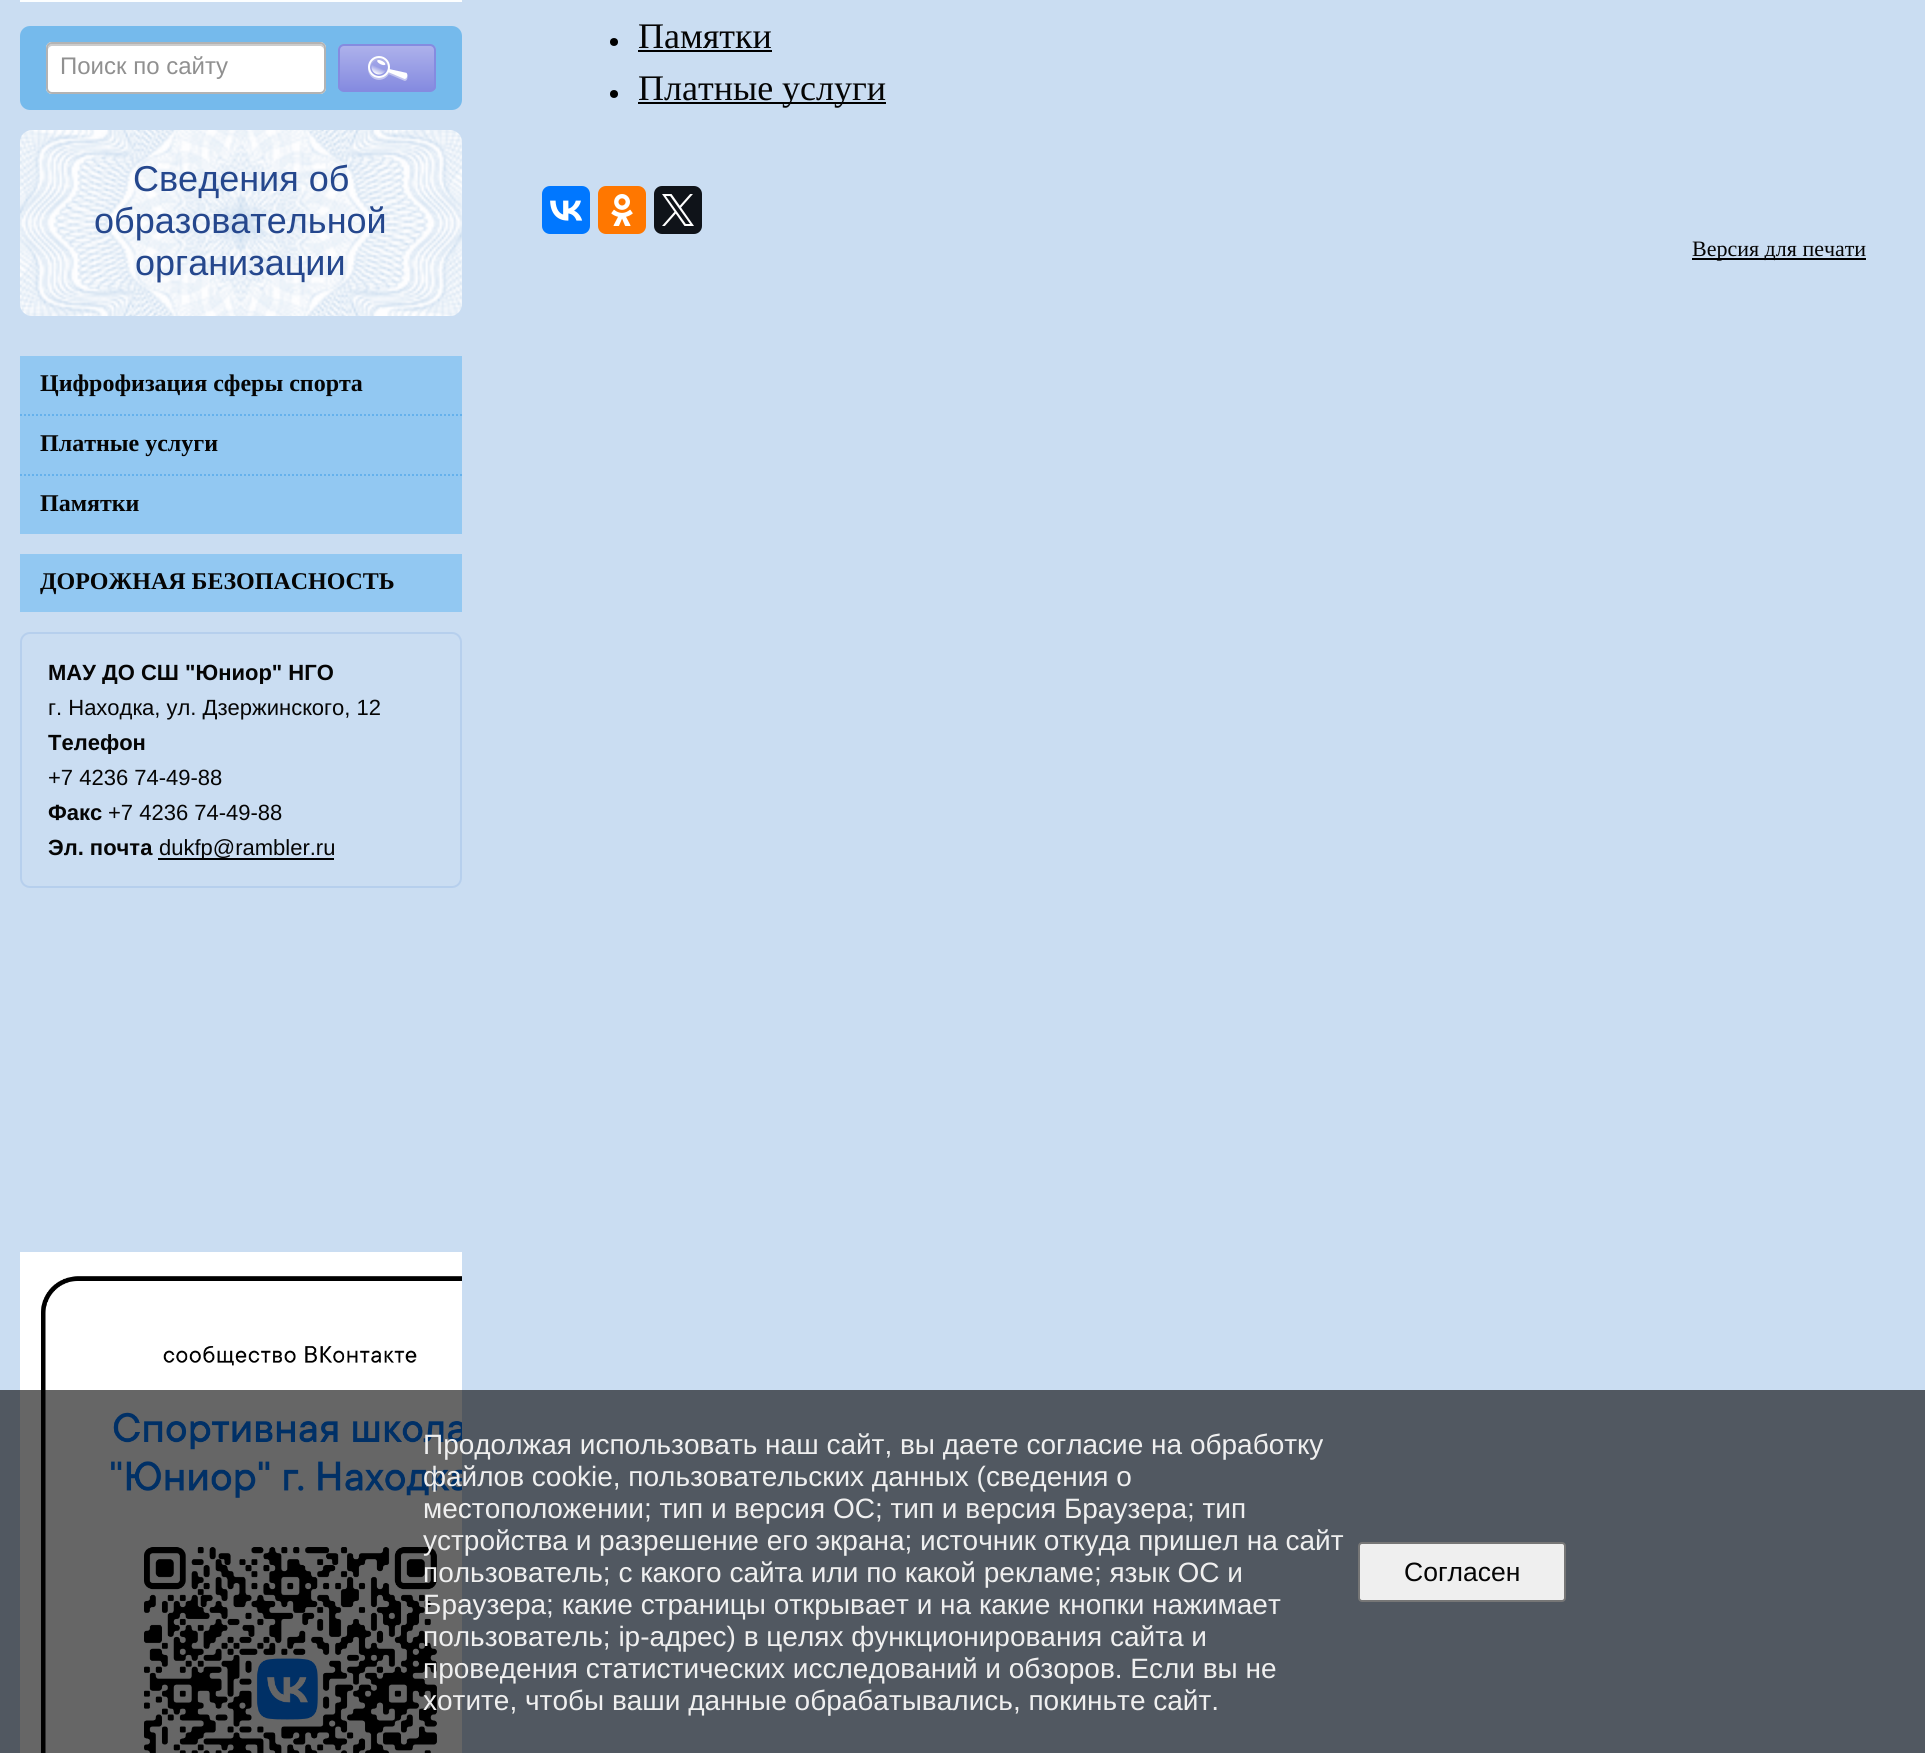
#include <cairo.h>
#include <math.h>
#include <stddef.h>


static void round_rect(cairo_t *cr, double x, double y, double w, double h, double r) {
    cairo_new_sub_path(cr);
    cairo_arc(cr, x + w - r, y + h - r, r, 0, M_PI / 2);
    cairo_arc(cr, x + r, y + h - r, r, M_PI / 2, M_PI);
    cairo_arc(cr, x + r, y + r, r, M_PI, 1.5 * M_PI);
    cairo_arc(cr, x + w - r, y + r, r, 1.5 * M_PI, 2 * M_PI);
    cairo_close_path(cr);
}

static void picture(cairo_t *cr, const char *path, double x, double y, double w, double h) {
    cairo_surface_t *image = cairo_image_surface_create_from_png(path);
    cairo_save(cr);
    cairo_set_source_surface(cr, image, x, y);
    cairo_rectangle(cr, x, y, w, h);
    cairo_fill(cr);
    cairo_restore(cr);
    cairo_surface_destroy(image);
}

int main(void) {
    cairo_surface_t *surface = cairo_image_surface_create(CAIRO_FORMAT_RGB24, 1925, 1753);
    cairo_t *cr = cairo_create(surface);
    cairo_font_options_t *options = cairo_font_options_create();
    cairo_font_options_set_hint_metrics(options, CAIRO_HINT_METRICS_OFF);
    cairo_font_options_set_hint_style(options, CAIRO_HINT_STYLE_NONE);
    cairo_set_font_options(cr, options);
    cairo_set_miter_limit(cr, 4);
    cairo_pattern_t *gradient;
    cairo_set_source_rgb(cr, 0.792, 0.867, 0.949);
    cairo_paint(cr);
    cairo_set_source_rgb(cr, 0.988, 0.996, 1);
    cairo_rectangle(cr, 20, 0, 442, 2);
    cairo_fill(cr);
    cairo_set_source_rgb(cr, 0.459, 0.729, 0.922);
    round_rect(cr, 20, 26, 442, 84, 10);
    cairo_fill(cr);
    cairo_set_source_rgb(cr, 1, 1, 1);
    round_rect(cr, 46, 42, 280, 52, 6);
    cairo_fill(cr);
    cairo_set_source_rgb(cr, 0.8, 0.8, 0.8);
    cairo_new_path(cr);
    cairo_move_to(cr, 52, 46);
    cairo_line_to(cr, 320, 46);
    cairo_curve_to(cr, 322, 46, 324, 48, 324, 50);
    cairo_curve_to(cr, 324, 47, 324, 44, 320, 44);
    cairo_line_to(cr, 52, 44);
    cairo_curve_to(cr, 48, 44, 48, 47, 48, 50);
    cairo_curve_to(cr, 48, 48, 50, 46, 52, 46);
    cairo_close_path(cr);
    cairo_fill(cr);
    round_rect(cr, 47, 43, 278, 50, 5);
    cairo_set_source_rgb(cr, 0.702, 0.702, 0.702);
    cairo_stroke(cr);
    cairo_select_font_face(cr, "Liberation Sans", CAIRO_FONT_SLANT_NORMAL, CAIRO_FONT_WEIGHT_NORMAL);
    cairo_set_font_size(cr, 24);
    cairo_set_source_rgb(cr, 0.565, 0.565, 0.565);
    cairo_move_to(cr, 60, 74);
    cairo_show_text(cr, "Поиск по сайту");
    cairo_save(cr);
    round_rect(cr, 338, 44, 98, 48, 6);
    cairo_clip(cr);
    gradient = cairo_pattern_create_linear(387, 46, 387, 90);
    cairo_pattern_add_color_stop_rgba(gradient, 0, 0.678, 0.694, 0.922, 1);
    cairo_pattern_add_color_stop_rgba(gradient, 1, 0.522, 0.545, 0.878, 1);
    cairo_set_source(cr, gradient);
    cairo_pattern_destroy(gradient);
    cairo_rectangle(cr, 338, 46, 98, 44);
    cairo_fill(cr);
    cairo_restore(cr);
    round_rect(cr, 339, 45, 96, 46, 5);
    cairo_set_source_rgb(cr, 0.522, 0.545, 0.878);
    cairo_stroke(cr);
    picture(cr, "img1.png", 368, 56, 40, 25);
    picture(cr, "img2.png", 20, 130, 442, 186);
    cairo_set_font_size(cr, 36);
    cairo_set_source_rgb(cr, 0.145, 0.278, 0.553);
    cairo_move_to(cr, 133, 191);
    cairo_show_text(cr, "Сведения об");
    cairo_move_to(cr, 94, 233);
    cairo_show_text(cr, "образовательной");
    cairo_move_to(cr, 135, 275);
    cairo_show_text(cr, "организации");
    cairo_set_source_rgb(cr, 0.573, 0.784, 0.949);
    cairo_rectangle(cr, 20, 356, 442, 178);
    cairo_fill(cr);
    cairo_new_path(cr);
    cairo_move_to(cr, 20, 415);
    cairo_line_to(cr, 462, 415);
    cairo_set_source_rgb(cr, 0.396, 0.694, 0.925);
    cairo_set_dash(cr, (double[]){2, 2}, 2, 0);
    cairo_stroke(cr);
    cairo_select_font_face(cr, "Liberation Serif", CAIRO_FONT_SLANT_NORMAL, CAIRO_FONT_WEIGHT_BOLD);
    cairo_set_font_size(cr, 24);
    cairo_set_source_rgb(cr, 0.02, 0.02, 0.02);
    cairo_move_to(cr, 40, 391);
    cairo_show_text(cr, "Цифрофизация сферы спорта");
    cairo_new_path(cr);
    cairo_move_to(cr, 20, 475);
    cairo_line_to(cr, 462, 475);
    cairo_set_source_rgb(cr, 0.396, 0.694, 0.925);
    cairo_stroke(cr);
    cairo_set_source_rgb(cr, 0.02, 0.02, 0.02);
    cairo_move_to(cr, 40, 451);
    cairo_show_text(cr, "Платные услуги");
    cairo_move_to(cr, 40, 511);
    cairo_show_text(cr, "Памятки");
    cairo_set_source_rgb(cr, 0.573, 0.784, 0.949);
    cairo_rectangle(cr, 20, 554, 442, 58);
    cairo_fill(cr);
    cairo_set_source_rgb(cr, 0.02, 0.02, 0.02);
    cairo_move_to(cr, 40, 589);
    cairo_show_text(cr, "ДОРОЖНАЯ БЕЗОПАСНОСТЬ");
    round_rect(cr, 21, 633, 440, 254, 9);
    cairo_set_source_rgb(cr, 0.714, 0.812, 0.929);
    cairo_set_dash(cr, NULL, 0, 0);
    cairo_stroke(cr);
    cairo_save(cr);
    cairo_rectangle(cr, 48, 660, 386, 24);
    cairo_clip(cr);
    cairo_select_font_face(cr, "Liberation Sans", CAIRO_FONT_SLANT_NORMAL, CAIRO_FONT_WEIGHT_BOLD);
    cairo_set_font_size(cr, 22);
    cairo_set_source_rgb(cr, 0.02, 0.02, 0.02);
    cairo_move_to(cr, 48, 680);
    cairo_show_text(cr, "МАУ ДО СШ \"Юниор\" НГО");
    cairo_restore(cr);
    cairo_select_font_face(cr, "Liberation Sans", CAIRO_FONT_SLANT_NORMAL, CAIRO_FONT_WEIGHT_NORMAL);
    cairo_set_font_size(cr, 22);
    cairo_set_source_rgb(cr, 0.02, 0.02, 0.02);
    cairo_move_to(cr, 48, 715);
    cairo_show_text(cr, "г. Находка, ул. Дзержинского, 12");
    cairo_save(cr);
    cairo_rectangle(cr, 48, 730, 386, 24);
    cairo_clip(cr);
    cairo_select_font_face(cr, "Liberation Sans", CAIRO_FONT_SLANT_NORMAL, CAIRO_FONT_WEIGHT_BOLD);
    cairo_move_to(cr, 48, 750);
    cairo_show_text(cr, "Телефон");
    cairo_restore(cr);
    cairo_move_to(cr, 48, 785);
    cairo_show_text(cr, "+7 4236 74-49-88");
    cairo_select_font_face(cr, "Liberation Sans", CAIRO_FONT_SLANT_NORMAL, CAIRO_FONT_WEIGHT_BOLD);
    cairo_move_to(cr, 48, 820);
    cairo_show_text(cr, "Факс");
    cairo_select_font_face(cr, "Liberation Sans", CAIRO_FONT_SLANT_NORMAL, CAIRO_FONT_WEIGHT_NORMAL);
    cairo_move_to(cr, 108, 820);
    cairo_show_text(cr, "+7 4236 74-49-88");
    cairo_select_font_face(cr, "Liberation Sans", CAIRO_FONT_SLANT_NORMAL, CAIRO_FONT_WEIGHT_BOLD);
    cairo_move_to(cr, 48, 855);
    cairo_show_text(cr, "Эл. почта");
    cairo_set_source_rgb(cr, 0, 0, 0);
    cairo_rectangle(cr, 158, 858, 176, 2);
    cairo_fill(cr);
    cairo_select_font_face(cr, "Liberation Sans", CAIRO_FONT_SLANT_NORMAL, CAIRO_FONT_WEIGHT_NORMAL);
    cairo_set_source_rgb(cr, 0.02, 0.02, 0.02);
    cairo_move_to(cr, 159, 855);
    cairo_show_text(cr, "dukfp@rambler.ru");
    picture(cr, "img3.png", 20, 1252, 442, 501);
    cairo_set_source_rgb(cr, 0, 0, 0);
    cairo_arc(cr, 614, 42, 4, 0, 2 * M_PI);
    cairo_fill(cr);
    cairo_select_font_face(cr, "Liberation Serif", CAIRO_FONT_SLANT_NORMAL, CAIRO_FONT_WEIGHT_NORMAL);
    cairo_set_font_size(cr, 36);
    cairo_set_source_rgb(cr, 0.02, 0.02, 0.02);
    cairo_move_to(cr, 638, 48);
    cairo_show_text(cr, "Памятки");
    cairo_set_source_rgb(cr, 0, 0, 0);
    cairo_rectangle(cr, 638, 50, 134, 2);
    cairo_fill(cr);
    cairo_arc(cr, 614, 94, 4, 0, 2 * M_PI);
    cairo_fill(cr);
    cairo_rectangle(cr, 638, 102, 248, 2);
    cairo_fill(cr);
    cairo_set_source_rgb(cr, 0.02, 0.02, 0.02);
    cairo_move_to(cr, 638, 100);
    cairo_show_text(cr, "Платные услуги");
    cairo_set_source_rgb(cr, 0, 0.467, 1);
    round_rect(cr, 542, 186, 48, 48, 8);
    cairo_fill(cr);
    picture(cr, "img4.png", 550, 200, 33, 21);
    cairo_set_source_rgb(cr, 1, 0.467, 0);
    round_rect(cr, 598, 186, 48, 48, 8);
    cairo_fill(cr);
    picture(cr, "img5.png", 611, 194, 22, 32);
    cairo_set_source_rgb(cr, 0.059, 0.078, 0.098);
    round_rect(cr, 654, 186, 48, 48, 8);
    cairo_fill(cr);
    picture(cr, "img6.png", 662, 194, 32, 32);
    cairo_set_source_rgb(cr, 0, 0, 0);
    cairo_rectangle(cr, 1692, 258, 174, 2);
    cairo_fill(cr);
    cairo_set_font_size(cr, 22);
    cairo_set_source_rgb(cr, 0.02, 0.02, 0.02);
    cairo_move_to(cr, 1692, 256);
    cairo_show_text(cr, "Версия для печати");
    cairo_set_source_rgba(cr, 0, 0, 0, 0.6);
    cairo_rectangle(cr, 0, 1390, 1925, 363);
    cairo_fill(cr);
    cairo_select_font_face(cr, "Liberation Sans", CAIRO_FONT_SLANT_NORMAL, CAIRO_FONT_WEIGHT_NORMAL);
    cairo_set_font_size(cr, 28);
    cairo_set_source_rgb(cr, 0.937, 0.937, 0.937);
    cairo_move_to(cr, 423, 1454);
    cairo_show_text(cr, "Продолжая использовать наш сайт, вы даете согласие на обработку");
    cairo_move_to(cr, 423, 1486);
    cairo_show_text(cr, "файлов cookie, пользовательских данных (сведения о");
    cairo_move_to(cr, 423, 1518);
    cairo_show_text(cr, "местоположении; тип и версия ОС; тип и версия Браузера; тип");
    cairo_move_to(cr, 423, 1550);
    cairo_show_text(cr, "устройства и разрешение его экрана; источник откуда пришел на сайт");
    cairo_move_to(cr, 423, 1582);
    cairo_show_text(cr, "пользователь; с какого сайта или по какой рекламе; язык ОС и");
    cairo_move_to(cr, 423, 1614);
    cairo_show_text(cr, "Браузера; какие страницы открывает и на какие кнопки нажимает");
    cairo_move_to(cr, 423, 1646);
    cairo_show_text(cr, "пользователь; ip-адрес) в целях функционирования сайта и");
    cairo_move_to(cr, 423, 1678);
    cairo_show_text(cr, "проведения статистических исследований и обзоров. Если вы не");
    cairo_move_to(cr, 423, 1710);
    cairo_show_text(cr, "хотите, чтобы ваши данные обрабатывались, покиньте сайт.");
    round_rect(cr, 1359, 1543, 206, 58, 3);
    cairo_fill_preserve(cr);
    cairo_set_source_rgb(cr, 0.463, 0.463, 0.463);
    cairo_stroke(cr);
    cairo_set_font_size(cr, 26.5);
    cairo_set_source_rgb(cr, 0.02, 0.02, 0.02);
    cairo_move_to(cr, 1404, 1581);
    cairo_show_text(cr, "Согласен");
    cairo_surface_write_to_png(surface, "page.png");
    cairo_font_options_destroy(options);
    cairo_destroy(cr);
    cairo_surface_destroy(surface);
    return 0;
}
